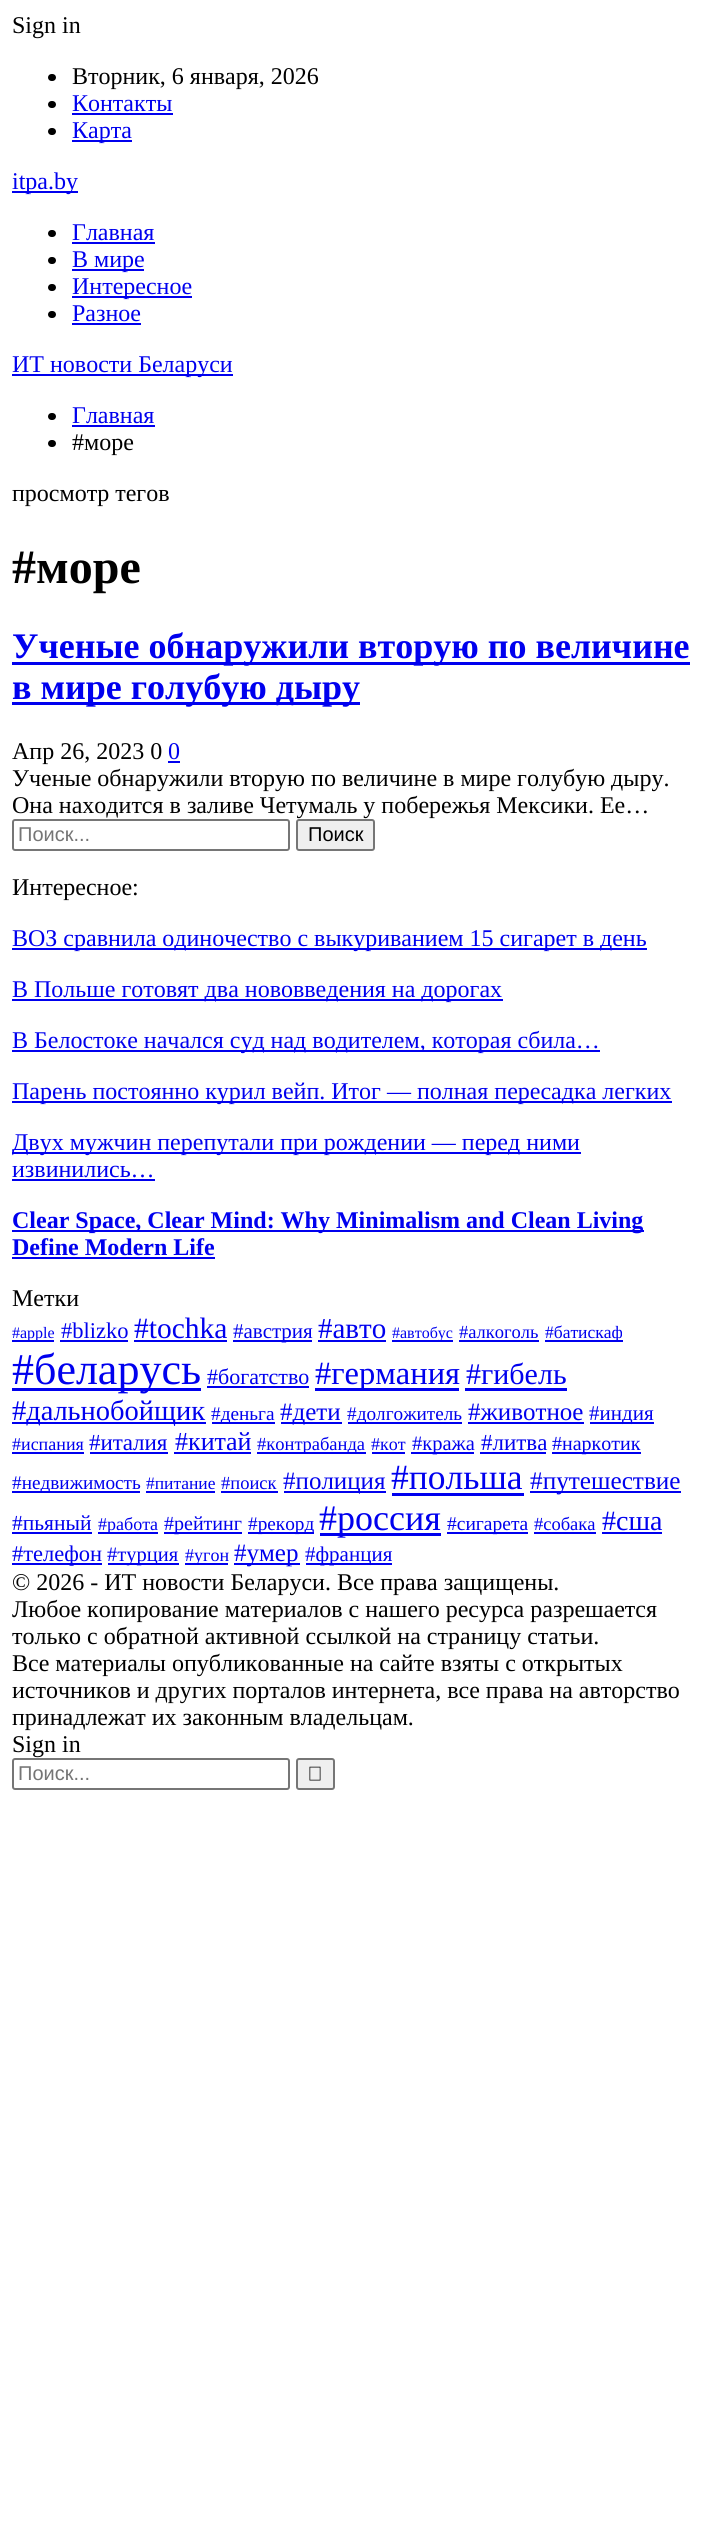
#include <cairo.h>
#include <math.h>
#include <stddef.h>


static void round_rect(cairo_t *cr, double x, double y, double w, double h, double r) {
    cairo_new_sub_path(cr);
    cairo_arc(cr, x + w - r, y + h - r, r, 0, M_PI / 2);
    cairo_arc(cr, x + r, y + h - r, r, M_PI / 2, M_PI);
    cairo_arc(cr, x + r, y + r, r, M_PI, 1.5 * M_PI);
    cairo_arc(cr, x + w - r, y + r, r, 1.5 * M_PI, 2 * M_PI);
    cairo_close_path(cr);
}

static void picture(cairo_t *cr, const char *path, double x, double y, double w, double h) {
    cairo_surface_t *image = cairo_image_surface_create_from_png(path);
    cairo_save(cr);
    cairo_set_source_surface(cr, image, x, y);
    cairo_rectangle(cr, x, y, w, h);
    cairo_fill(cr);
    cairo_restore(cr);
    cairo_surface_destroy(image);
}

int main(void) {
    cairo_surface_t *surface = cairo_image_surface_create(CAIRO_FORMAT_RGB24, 713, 2548);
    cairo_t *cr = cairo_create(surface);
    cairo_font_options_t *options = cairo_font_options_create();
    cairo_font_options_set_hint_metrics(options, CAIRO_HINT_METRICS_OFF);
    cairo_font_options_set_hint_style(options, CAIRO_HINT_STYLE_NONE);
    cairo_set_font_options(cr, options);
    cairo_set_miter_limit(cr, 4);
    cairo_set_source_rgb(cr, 1, 1, 1);
    cairo_paint(cr);
    cairo_select_font_face(cr, "Liberation Serif", CAIRO_FONT_SLANT_NORMAL, CAIRO_FONT_WEIGHT_NORMAL);
    cairo_set_font_size(cr, 24);
    cairo_set_source_rgb(cr, 0, 0, 0);
    cairo_move_to(cr, 12, 33);
    cairo_show_text(cr, "Sign in");
    round_rect(cr, 48, 74, 8, 7, 3.5);
    cairo_fill(cr);
    cairo_move_to(cr, 72, 84);
    cairo_show_text(cr, "Вторник, 6 января, 2026");
    round_rect(cr, 48, 101, 8, 7, 3.5);
    cairo_fill(cr);
    cairo_set_source_rgb(cr, 0, 0, 0.933);
    cairo_move_to(cr, 72, 111);
    cairo_show_text(cr, "Контакты");
    cairo_rectangle(cr, 72, 113, 101, 2);
    cairo_fill(cr);
    cairo_set_source_rgb(cr, 0, 0, 0);
    round_rect(cr, 48, 128, 8, 7, 3.5);
    cairo_fill(cr);
    cairo_set_source_rgb(cr, 0, 0, 0.933);
    cairo_rectangle(cr, 72, 140, 60, 2);
    cairo_fill(cr);
    cairo_move_to(cr, 72, 138);
    cairo_show_text(cr, "Карта");
    cairo_rectangle(cr, 12, 191, 66, 2);
    cairo_fill(cr);
    cairo_move_to(cr, 12, 189);
    cairo_show_text(cr, "itpa.by");
    cairo_set_source_rgb(cr, 0, 0, 0);
    round_rect(cr, 48, 230, 8, 7, 3.5);
    cairo_fill(cr);
    cairo_set_source_rgb(cr, 0, 0, 0.933);
    cairo_move_to(cr, 72, 240);
    cairo_show_text(cr, "Главная");
    cairo_rectangle(cr, 72, 242, 83, 2);
    cairo_fill(cr);
    cairo_set_source_rgb(cr, 0, 0, 0);
    round_rect(cr, 48, 257, 8, 7, 3.5);
    cairo_fill(cr);
    cairo_set_source_rgb(cr, 0, 0, 0.933);
    cairo_rectangle(cr, 72, 269, 72, 2);
    cairo_fill(cr);
    cairo_move_to(cr, 72, 267);
    cairo_show_text(cr, "В мире");
    cairo_set_source_rgb(cr, 0, 0, 0);
    round_rect(cr, 48, 284, 8, 7, 3.5);
    cairo_fill(cr);
    cairo_set_source_rgb(cr, 0, 0, 0.933);
    cairo_rectangle(cr, 72, 296, 120, 2);
    cairo_fill(cr);
    cairo_move_to(cr, 72, 294);
    cairo_show_text(cr, "Интересное");
    cairo_set_source_rgb(cr, 0, 0, 0);
    round_rect(cr, 48, 311, 8, 7, 3.5);
    cairo_fill(cr);
    cairo_set_source_rgb(cr, 0, 0, 0.933);
    cairo_move_to(cr, 72, 321);
    cairo_show_text(cr, "Разное");
    cairo_rectangle(cr, 72, 323, 69, 2);
    cairo_fill(cr);
    cairo_rectangle(cr, 12, 374, 221, 2);
    cairo_fill(cr);
    cairo_move_to(cr, 12, 372);
    cairo_show_text(cr, "ИТ новости Беларуси");
    cairo_set_source_rgb(cr, 0, 0, 0);
    round_rect(cr, 48, 413, 8, 7, 3.5);
    cairo_fill(cr);
    cairo_set_source_rgb(cr, 0, 0, 0.933);
    cairo_move_to(cr, 72, 423);
    cairo_show_text(cr, "Главная");
    cairo_rectangle(cr, 72, 425, 83, 2);
    cairo_fill(cr);
    cairo_set_source_rgb(cr, 0, 0, 0);
    round_rect(cr, 48, 440, 8, 7, 3.5);
    cairo_fill(cr);
    cairo_move_to(cr, 72, 450);
    cairo_show_text(cr, "#море");
    cairo_move_to(cr, 12, 501);
    cairo_show_text(cr, "просмотр тегов");
    cairo_select_font_face(cr, "Liberation Serif", CAIRO_FONT_SLANT_NORMAL, CAIRO_FONT_WEIGHT_BOLD);
    cairo_set_font_size(cr, 48);
    cairo_move_to(cr, 12, 583);
    cairo_show_text(cr, "#море");
    cairo_set_source_rgb(cr, 0, 0, 0.933);
    cairo_rectangle(cr, 12, 662, 678, 3);
    cairo_fill(cr);
    cairo_set_font_size(cr, 36);
    cairo_move_to(cr, 12, 658);
    cairo_show_text(cr, "Ученые обнаружили вторую по величине");
    cairo_rectangle(cr, 12, 702, 348, 3);
    cairo_fill(cr);
    cairo_move_to(cr, 12, 699);
    cairo_show_text(cr, "в мире голубую дыру");
    cairo_select_font_face(cr, "Liberation Serif", CAIRO_FONT_SLANT_NORMAL, CAIRO_FONT_WEIGHT_NORMAL);
    cairo_set_font_size(cr, 24);
    cairo_set_source_rgb(cr, 0, 0, 0);
    cairo_move_to(cr, 12, 759);
    cairo_show_text(cr, "Апр 26, 2023 0");
    cairo_set_source_rgb(cr, 0, 0, 0.933);
    cairo_move_to(cr, 168, 759);
    cairo_show_text(cr, "0");
    cairo_rectangle(cr, 168, 761, 12, 2);
    cairo_fill(cr);
    cairo_set_source_rgb(cr, 0, 0, 0);
    cairo_move_to(cr, 12, 786);
    cairo_show_text(cr, "Ученые обнаружили вторую по величине в мире голубую дыру.");
    cairo_move_to(cr, 12, 813);
    cairo_show_text(cr, "Она находится в заливе Четумаль у побережья Мексики. Ее…");
    round_rect(cr, 13, 820, 276, 30, 2);
    cairo_set_source_rgb(cr, 0.463, 0.463, 0.463);
    cairo_stroke(cr);
    cairo_select_font_face(cr, "Liberation Sans", CAIRO_FONT_SLANT_NORMAL, CAIRO_FONT_WEIGHT_NORMAL);
    cairo_set_font_size(cr, 20);
    cairo_set_source_rgb(cr, 0.459, 0.459, 0.459);
    cairo_move_to(cr, 18, 841);
    cairo_show_text(cr, "Поиск...");
    cairo_set_source_rgb(cr, 0.937, 0.937, 0.937);
    round_rect(cr, 297, 820, 77, 30, 2);
    cairo_fill_preserve(cr);
    cairo_set_source_rgb(cr, 0.463, 0.463, 0.463);
    cairo_stroke(cr);
    cairo_set_source_rgb(cr, 0, 0, 0);
    cairo_move_to(cr, 308, 841);
    cairo_show_text(cr, "Поиск");
    cairo_select_font_face(cr, "Liberation Serif", CAIRO_FONT_SLANT_NORMAL, CAIRO_FONT_WEIGHT_NORMAL);
    cairo_set_font_size(cr, 24);
    cairo_move_to(cr, 12, 895);
    cairo_show_text(cr, "Интересное:");
    cairo_set_source_rgb(cr, 0, 0, 0.933);
    cairo_rectangle(cr, 12, 948, 635, 2);
    cairo_fill(cr);
    cairo_move_to(cr, 12, 946);
    cairo_show_text(cr, "ВОЗ сравнила одиночество с выкуриванием 15 сигарет в день");
    cairo_rectangle(cr, 12, 999, 491, 2);
    cairo_fill(cr);
    cairo_move_to(cr, 12, 997);
    cairo_show_text(cr, "В Польше готовят два нововведения на дорогах");
    cairo_rectangle(cr, 12, 1050, 588, 2);
    cairo_fill(cr);
    cairo_move_to(cr, 12, 1048);
    cairo_show_text(cr, "В Белостоке начался суд над водителем, которая сбила…");
    cairo_rectangle(cr, 12, 1101, 660, 2);
    cairo_fill(cr);
    cairo_move_to(cr, 12, 1099);
    cairo_show_text(cr, "Парень постоянно курил вейп. Итог — полная пересадка легких");
    cairo_rectangle(cr, 12, 1152, 569, 2);
    cairo_fill(cr);
    cairo_move_to(cr, 12, 1150);
    cairo_show_text(cr, "Двух мужчин перепутали при рождении — перед ними");
    cairo_move_to(cr, 12, 1177);
    cairo_show_text(cr, "извинились…");
    cairo_rectangle(cr, 12, 1179, 143, 2);
    cairo_fill(cr);
    cairo_rectangle(cr, 12, 1230, 632, 2);
    cairo_fill(cr);
    cairo_select_font_face(cr, "Liberation Serif", CAIRO_FONT_SLANT_NORMAL, CAIRO_FONT_WEIGHT_BOLD);
    cairo_move_to(cr, 12, 1228);
    cairo_show_text(cr, "Clear Space, Clear Mind: Why Minimalism and Clean Living");
    cairo_move_to(cr, 12, 1255);
    cairo_show_text(cr, "Define Modern Life");
    cairo_rectangle(cr, 12, 1257, 203, 2);
    cairo_fill(cr);
    cairo_select_font_face(cr, "Liberation Serif", CAIRO_FONT_SLANT_NORMAL, CAIRO_FONT_WEIGHT_NORMAL);
    cairo_set_source_rgb(cr, 0, 0, 0);
    cairo_move_to(cr, 12, 1306);
    cairo_show_text(cr, "Метки");
    cairo_set_source_rgb(cr, 0, 0, 0.933);
    cairo_rectangle(cr, 12, 1340, 42, 2);
    cairo_fill(cr);
    cairo_set_font_size(cr, 16);
    cairo_move_to(cr, 12, 1338);
    cairo_show_text(cr, "#apple");
    cairo_set_font_size(cr, 22.5);
    cairo_move_to(cr, 61, 1338);
    cairo_show_text(cr, "#blizko");
    cairo_rectangle(cr, 60, 1340, 68, 2);
    cairo_fill(cr);
    cairo_set_font_size(cr, 29.5);
    cairo_move_to(cr, 134, 1338);
    cairo_show_text(cr, "#tochka");
    cairo_rectangle(cr, 134, 1340, 93, 2);
    cairo_fill(cr);
    cairo_rectangle(cr, 233, 1340, 79, 2);
    cairo_fill(cr);
    cairo_set_font_size(cr, 21);
    cairo_move_to(cr, 233, 1338);
    cairo_show_text(cr, "#австрия");
    cairo_set_font_size(cr, 29);
    cairo_move_to(cr, 318, 1338);
    cairo_show_text(cr, "#авто");
    cairo_rectangle(cr, 318, 1340, 68, 2);
    cairo_fill(cr);
    cairo_rectangle(cr, 392, 1340, 61, 2);
    cairo_fill(cr);
    cairo_set_font_size(cr, 16);
    cairo_move_to(cr, 392, 1338);
    cairo_show_text(cr, "#автобус");
    cairo_set_font_size(cr, 18.5);
    cairo_move_to(cr, 459, 1338);
    cairo_show_text(cr, "#алкоголь");
    cairo_rectangle(cr, 459, 1340, 80, 2);
    cairo_fill(cr);
    cairo_rectangle(cr, 545, 1340, 78, 2);
    cairo_fill(cr);
    cairo_set_font_size(cr, 17.5);
    cairo_move_to(cr, 545, 1338);
    cairo_show_text(cr, "#батискаф");
    cairo_rectangle(cr, 12, 1388, 189, 3);
    cairo_fill(cr);
    cairo_set_font_size(cr, 44);
    cairo_move_to(cr, 12, 1384);
    cairo_show_text(cr, "#беларусь");
    cairo_set_font_size(cr, 22);
    cairo_move_to(cr, 207, 1384);
    cairo_show_text(cr, "#богатство");
    cairo_rectangle(cr, 207, 1386, 102, 2);
    cairo_fill(cr);
    cairo_rectangle(cr, 315, 1388, 144, 3);
    cairo_fill(cr);
    cairo_set_font_size(cr, 32.5);
    cairo_move_to(cr, 315, 1384);
    cairo_show_text(cr, "#германия");
    cairo_set_font_size(cr, 30);
    cairo_move_to(cr, 466, 1384);
    cairo_show_text(cr, "#гибель");
    cairo_rectangle(cr, 465, 1388, 102, 3);
    cairo_fill(cr);
    cairo_rectangle(cr, 12, 1422, 194, 2);
    cairo_fill(cr);
    cairo_set_font_size(cr, 28.5);
    cairo_move_to(cr, 12, 1420);
    cairo_show_text(cr, "#дальнобойщик");
    cairo_rectangle(cr, 212, 1422, 63, 2);
    cairo_fill(cr);
    cairo_set_font_size(cr, 19.25);
    cairo_move_to(cr, 211, 1420);
    cairo_show_text(cr, "#деньга");
    cairo_rectangle(cr, 281, 1422, 61, 2);
    cairo_fill(cr);
    cairo_set_font_size(cr, 25);
    cairo_move_to(cr, 280, 1420);
    cairo_show_text(cr, "#дети");
    cairo_rectangle(cr, 348, 1422, 114, 2);
    cairo_fill(cr);
    cairo_set_font_size(cr, 19.25);
    cairo_move_to(cr, 347, 1420);
    cairo_show_text(cr, "#долгожитель");
    cairo_set_font_size(cr, 25);
    cairo_move_to(cr, 468, 1420);
    cairo_show_text(cr, "#животное");
    cairo_rectangle(cr, 468, 1422, 116, 2);
    cairo_fill(cr);
    cairo_rectangle(cr, 590, 1422, 64, 2);
    cairo_fill(cr);
    cairo_set_font_size(cr, 21);
    cairo_move_to(cr, 589, 1420);
    cairo_show_text(cr, "#индия");
    cairo_set_font_size(cr, 18);
    cairo_move_to(cr, 12, 1450);
    cairo_show_text(cr, "#испания");
    cairo_rectangle(cr, 12, 1452, 72, 2);
    cairo_fill(cr);
    cairo_set_font_size(cr, 23);
    cairo_move_to(cr, 89, 1450);
    cairo_show_text(cr, "#италия");
    cairo_rectangle(cr, 90, 1452, 78, 2);
    cairo_fill(cr);
    cairo_set_font_size(cr, 26);
    cairo_move_to(cr, 175, 1450);
    cairo_show_text(cr, "#китай");
    cairo_rectangle(cr, 174, 1452, 77, 2);
    cairo_fill(cr);
    cairo_rectangle(cr, 257, 1452, 109, 2);
    cairo_fill(cr);
    cairo_set_font_size(cr, 18.5);
    cairo_move_to(cr, 257, 1450);
    cairo_show_text(cr, "#контрабанда");
    cairo_set_font_size(cr, 18);
    cairo_move_to(cr, 371, 1450);
    cairo_show_text(cr, "#кот");
    cairo_rectangle(cr, 372, 1452, 33, 2);
    cairo_fill(cr);
    cairo_rectangle(cr, 411, 1452, 63, 2);
    cairo_fill(cr);
    cairo_set_font_size(cr, 20.5);
    cairo_move_to(cr, 412, 1450);
    cairo_show_text(cr, "#кража");
    cairo_set_font_size(cr, 23);
    cairo_move_to(cr, 481, 1450);
    cairo_show_text(cr, "#литва");
    cairo_rectangle(cr, 480, 1452, 66, 2);
    cairo_fill(cr);
    cairo_rectangle(cr, 552, 1452, 89, 2);
    cairo_fill(cr);
    cairo_set_font_size(cr, 20);
    cairo_move_to(cr, 552, 1450);
    cairo_show_text(cr, "#наркотик");
    cairo_rectangle(cr, 12, 1491, 128, 2);
    cairo_fill(cr);
    cairo_set_font_size(cr, 19.25);
    cairo_move_to(cr, 12, 1489);
    cairo_show_text(cr, "#недвижимость");
    cairo_set_font_size(cr, 17.5);
    cairo_move_to(cr, 146, 1489);
    cairo_show_text(cr, "#питание");
    cairo_rectangle(cr, 146, 1491, 69, 2);
    cairo_fill(cr);
    cairo_set_font_size(cr, 18.5);
    cairo_move_to(cr, 221, 1489);
    cairo_show_text(cr, "#поиск");
    cairo_rectangle(cr, 221, 1491, 57, 2);
    cairo_fill(cr);
    cairo_rectangle(cr, 284, 1491, 102, 2);
    cairo_fill(cr);
    cairo_set_font_size(cr, 25);
    cairo_move_to(cr, 283, 1489);
    cairo_show_text(cr, "#полиция");
    cairo_set_font_size(cr, 35.5);
    cairo_move_to(cr, 391, 1489);
    cairo_show_text(cr, "#польша");
    cairo_rectangle(cr, 392, 1493, 132, 3);
    cairo_fill(cr);
    cairo_rectangle(cr, 530, 1491, 151, 2);
    cairo_fill(cr);
    cairo_set_font_size(cr, 25.25);
    cairo_move_to(cr, 530, 1489);
    cairo_show_text(cr, "#путешествие");
    cairo_set_font_size(cr, 21.5);
    cairo_move_to(cr, 12, 1530);
    cairo_show_text(cr, "#пьяный");
    cairo_rectangle(cr, 12, 1532, 80, 2);
    cairo_fill(cr);
    cairo_rectangle(cr, 98, 1532, 60, 2);
    cairo_fill(cr);
    cairo_set_font_size(cr, 18);
    cairo_move_to(cr, 98, 1530);
    cairo_show_text(cr, "#работа");
    cairo_rectangle(cr, 164, 1532, 78, 2);
    cairo_fill(cr);
    cairo_set_font_size(cr, 20);
    cairo_move_to(cr, 164, 1530);
    cairo_show_text(cr, "#рейтинг");
    cairo_rectangle(cr, 248, 1532, 66, 2);
    cairo_fill(cr);
    cairo_set_font_size(cr, 19.25);
    cairo_move_to(cr, 248, 1530);
    cairo_show_text(cr, "#рекорд");
    cairo_rectangle(cr, 320, 1533, 121, 3);
    cairo_fill(cr);
    cairo_set_font_size(cr, 36);
    cairo_move_to(cr, 319, 1530);
    cairo_show_text(cr, "#россия");
    cairo_rectangle(cr, 447, 1532, 81, 2);
    cairo_fill(cr);
    cairo_set_font_size(cr, 19.5);
    cairo_move_to(cr, 447, 1530);
    cairo_show_text(cr, "#сигарета");
    cairo_set_font_size(cr, 18.5);
    cairo_move_to(cr, 534, 1530);
    cairo_show_text(cr, "#собака");
    cairo_rectangle(cr, 534, 1532, 62, 2);
    cairo_fill(cr);
    cairo_set_font_size(cr, 28);
    cairo_move_to(cr, 602, 1530);
    cairo_show_text(cr, "#сша");
    cairo_rectangle(cr, 602, 1532, 60, 2);
    cairo_fill(cr);
    cairo_rectangle(cr, 12, 1563, 90, 2);
    cairo_fill(cr);
    cairo_set_font_size(cr, 22.5);
    cairo_move_to(cr, 12, 1561);
    cairo_show_text(cr, "#телефон");
    cairo_rectangle(cr, 108, 1563, 71, 2);
    cairo_fill(cr);
    cairo_set_font_size(cr, 20.5);
    cairo_move_to(cr, 107, 1561);
    cairo_show_text(cr, "#турция");
    cairo_rectangle(cr, 185, 1563, 43, 2);
    cairo_fill(cr);
    cairo_set_font_size(cr, 18);
    cairo_move_to(cr, 185, 1561);
    cairo_show_text(cr, "#угон");
    cairo_rectangle(cr, 234, 1563, 66, 2);
    cairo_fill(cr);
    cairo_set_font_size(cr, 25);
    cairo_move_to(cr, 234, 1561);
    cairo_show_text(cr, "#умер");
    cairo_rectangle(cr, 306, 1563, 86, 2);
    cairo_fill(cr);
    cairo_set_font_size(cr, 21);
    cairo_move_to(cr, 305, 1561);
    cairo_show_text(cr, "#франция");
    cairo_set_font_size(cr, 24);
    cairo_set_source_rgb(cr, 0, 0, 0);
    cairo_move_to(cr, 12, 1590);
    cairo_show_text(cr, "© 2026 - ИТ новости Беларуси. Все права защищены.");
    cairo_move_to(cr, 12, 1617);
    cairo_show_text(cr, "Любое копирование материалов с нашего ресурса разрешается");
    cairo_move_to(cr, 12, 1644);
    cairo_show_text(cr, "только с обратной активной ссылкой на страницу статьи.");
    cairo_move_to(cr, 12, 1671);
    cairo_show_text(cr, "Все материалы опубликованные на сайте взяты с открытых");
    cairo_move_to(cr, 12, 1698);
    cairo_show_text(cr, "источников и других порталов интернета, все права на авторство");
    cairo_move_to(cr, 12, 1725);
    cairo_show_text(cr, "принадлежат их законным владельцам.");
    cairo_move_to(cr, 12, 1752);
    cairo_show_text(cr, "Sign in");
    round_rect(cr, 13, 1759, 276, 30, 2);
    cairo_set_source_rgb(cr, 0.463, 0.463, 0.463);
    cairo_stroke(cr);
    cairo_select_font_face(cr, "Liberation Sans", CAIRO_FONT_SLANT_NORMAL, CAIRO_FONT_WEIGHT_NORMAL);
    cairo_set_font_size(cr, 20);
    cairo_set_source_rgb(cr, 0.459, 0.459, 0.459);
    cairo_move_to(cr, 18, 1780);
    cairo_show_text(cr, "Поиск...");
    cairo_set_source_rgb(cr, 0.937, 0.937, 0.937);
    round_rect(cr, 297, 1759, 37, 30, 2);
    cairo_fill_preserve(cr);
    cairo_set_source_rgb(cr, 0.463, 0.463, 0.463);
    cairo_stroke(cr);
    picture(cr, "img1.png", 309, 1766, 12, 15);
    cairo_surface_write_to_png(surface, "page.png");
    cairo_font_options_destroy(options);
    cairo_destroy(cr);
    cairo_surface_destroy(surface);
    return 0;
}
